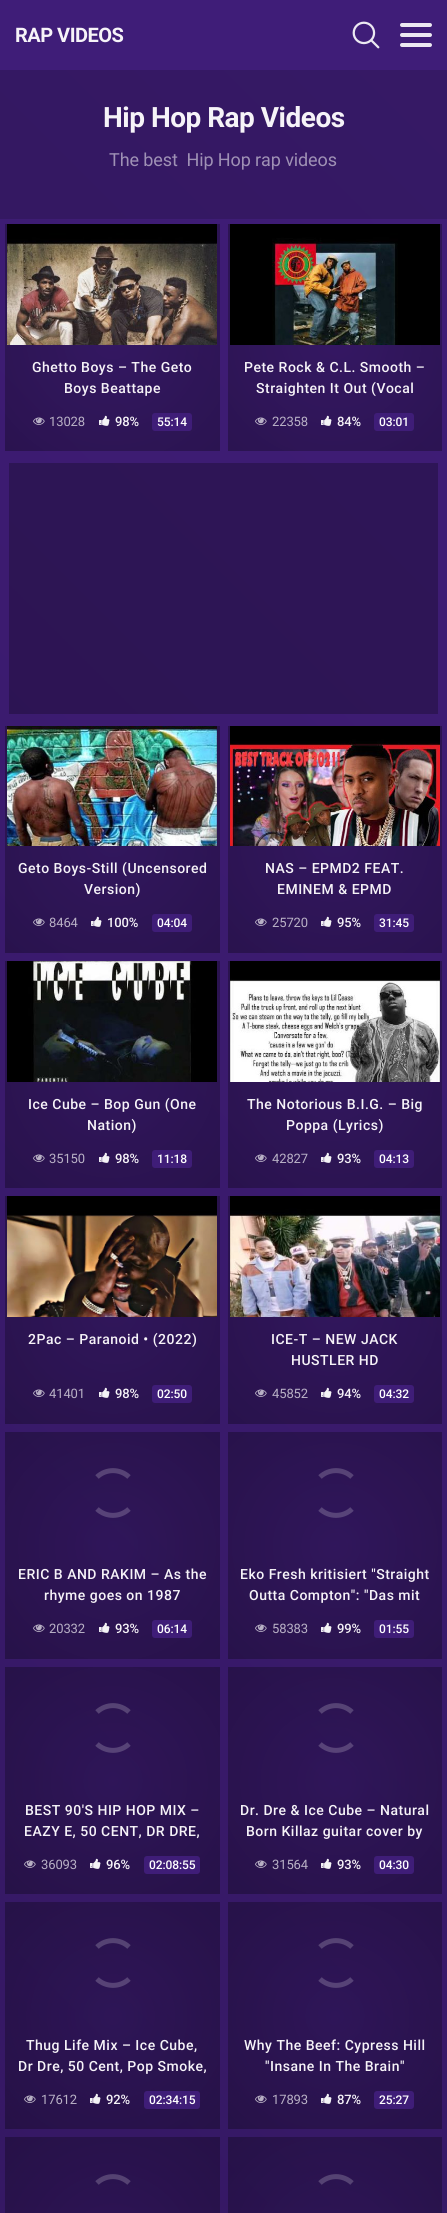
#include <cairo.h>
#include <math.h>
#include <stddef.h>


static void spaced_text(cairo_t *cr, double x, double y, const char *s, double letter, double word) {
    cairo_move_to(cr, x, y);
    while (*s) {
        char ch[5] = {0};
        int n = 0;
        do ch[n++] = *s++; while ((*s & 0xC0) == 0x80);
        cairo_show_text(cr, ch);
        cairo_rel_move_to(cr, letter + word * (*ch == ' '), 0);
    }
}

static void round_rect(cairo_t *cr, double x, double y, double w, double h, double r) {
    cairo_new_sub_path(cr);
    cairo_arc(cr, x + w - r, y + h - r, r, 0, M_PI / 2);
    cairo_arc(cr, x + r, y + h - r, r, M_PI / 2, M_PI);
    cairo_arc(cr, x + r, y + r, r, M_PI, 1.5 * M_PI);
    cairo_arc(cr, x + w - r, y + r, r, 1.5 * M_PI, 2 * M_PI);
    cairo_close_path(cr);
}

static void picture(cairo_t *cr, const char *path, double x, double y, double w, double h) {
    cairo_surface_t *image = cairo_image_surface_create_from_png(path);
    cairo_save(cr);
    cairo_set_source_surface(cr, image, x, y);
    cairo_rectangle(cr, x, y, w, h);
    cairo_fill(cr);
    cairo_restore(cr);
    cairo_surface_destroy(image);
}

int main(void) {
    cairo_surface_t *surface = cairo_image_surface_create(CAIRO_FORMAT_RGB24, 447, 2213);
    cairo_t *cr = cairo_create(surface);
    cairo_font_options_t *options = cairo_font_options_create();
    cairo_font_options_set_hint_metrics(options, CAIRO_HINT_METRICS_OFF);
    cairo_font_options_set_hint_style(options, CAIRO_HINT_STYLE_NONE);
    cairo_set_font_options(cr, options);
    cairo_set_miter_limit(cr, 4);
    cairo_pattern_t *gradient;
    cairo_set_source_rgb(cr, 1, 1, 1);
    cairo_paint(cr);
    cairo_set_source_rgb(cr, 0.247, 0.114, 0.471);
    cairo_rectangle(cr, 0, 0, 447, 70);
    cairo_fill(cr);
    cairo_select_font_face(cr, "Roboto", CAIRO_FONT_SLANT_NORMAL, CAIRO_FONT_WEIGHT_BOLD);
    cairo_set_font_size(cr, 20);
    cairo_set_source_rgb(cr, 0.961, 0.953, 0.969);
    spaced_text(cr, 15, 42, "RAP VIDEOS", -0.5, 0);
    picture(cr, "img1.png", 352, 21, 28, 28);
    cairo_set_source_rgb(cr, 0.925, 0.91, 0.949);
    round_rect(cr, 400, 23, 32, 4, 2);
    cairo_fill(cr);
    round_rect(cr, 400, 33, 32, 4, 2);
    cairo_fill(cr);
    round_rect(cr, 400, 43, 32, 4, 2);
    cairo_fill(cr);
    gradient = cairo_pattern_create_linear(-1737, 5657, 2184, 1737);
    cairo_pattern_add_color_stop_rgba(gradient, 0, 0.106, 0.047, 0.2, 1);
    cairo_pattern_add_color_stop_rgba(gradient, 1, 0.212, 0.098, 0.4, 1);
    cairo_set_source(cr, gradient);
    cairo_pattern_destroy(gradient);
    cairo_rectangle(cr, 0, 70, 447, 149);
    cairo_fill(cr);
    cairo_set_font_size(cr, 28);
    cairo_set_source_rgb(cr, 0.961, 0.953, 0.969);
    spaced_text(cr, 103, 127, "Hip Hop Rap Videos", -0.5, 0);
    cairo_select_font_face(cr, "Roboto", CAIRO_FONT_SLANT_NORMAL, CAIRO_FONT_WEIGHT_NORMAL);
    cairo_set_font_size(cr, 18);
    cairo_set_source_rgb(cr, 0.624, 0.569, 0.71);
    spaced_text(cr, 109, 166, "The best  Hip Hop rap videos", -0.1, 0);
    gradient = cairo_pattern_create_linear(-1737, 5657, 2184, 1737);
    cairo_pattern_add_color_stop_rgba(gradient, 0, 0.125, 0.055, 0.235, 1);
    cairo_pattern_add_color_stop_rgba(gradient, 1, 0.251, 0.114, 0.471, 1);
    cairo_set_source(cr, gradient);
    cairo_pattern_destroy(gradient);
    cairo_rectangle(cr, 0, 219, 447, 1994);
    cairo_fill(cr);
    gradient = cairo_pattern_create_radial(113, 338, 0, 113, 338, 156);
    cairo_pattern_add_color_stop_rgba(gradient, 0, 0, 0, 0, 0.15);
    cairo_pattern_add_color_stop_rgba(gradient, 1, 0, 0, 0, 0.3);
    cairo_set_source(cr, gradient);
    cairo_pattern_destroy(gradient);
    cairo_rectangle(cr, 5, 224, 215, 227);
    cairo_fill(cr);
    picture(cr, "img2.png", 7, 224, 210, 121);
    cairo_select_font_face(cr, "Roboto Medium", CAIRO_FONT_SLANT_NORMAL, CAIRO_FONT_WEIGHT_NORMAL);
    cairo_set_font_size(cr, 14);
    cairo_set_source_rgb(cr, 0.961, 0.953, 0.969);
    spaced_text(cr, 32, 372, "Ghetto Boys – The Geto", 0.5, 0);
    spaced_text(cr, 64, 393, "Boys Beattape", 0.5, 0);
    picture(cr, "img3.png", 33, 417, 12, 8);
    cairo_select_font_face(cr, "Roboto", CAIRO_FONT_SLANT_NORMAL, CAIRO_FONT_WEIGHT_NORMAL);
    cairo_set_font_size(cr, 13);
    cairo_set_source_rgb(cr, 0.725, 0.694, 0.776);
    spaced_text(cr, 49, 426, "13028", -0.1, 0);
    picture(cr, "img4.png", 99, 415, 11, 11);
    cairo_select_font_face(cr, "Roboto Medium", CAIRO_FONT_SLANT_NORMAL, CAIRO_FONT_WEIGHT_NORMAL);
    cairo_set_source_rgb(cr, 0.961, 0.953, 0.969);
    spaced_text(cr, 115, 426, "98%", -0.1, 0);
    cairo_set_source_rgb(cr, 0.247, 0.114, 0.471);
    round_rect(cr, 152, 413, 40, 18, 3);
    cairo_fill(cr);
    cairo_set_font_size(cr, 12);
    cairo_set_source_rgb(cr, 1, 1, 1);
    spaced_text(cr, 157, 426, "55:14", -0.1, 0);
    gradient = cairo_pattern_create_radial(335, 338, 0, 335, 338, 156);
    cairo_pattern_add_color_stop_rgba(gradient, 0, 0, 0, 0, 0.15);
    cairo_pattern_add_color_stop_rgba(gradient, 1, 0, 0, 0, 0.3);
    cairo_set_source(cr, gradient);
    cairo_pattern_destroy(gradient);
    cairo_rectangle(cr, 228, 224, 214, 227);
    cairo_fill(cr);
    picture(cr, "img5.png", 230, 224, 210, 121);
    cairo_set_font_size(cr, 14);
    cairo_set_source_rgb(cr, 0.961, 0.953, 0.969);
    spaced_text(cr, 244, 372, "Pete Rock & C.L. Smooth –", 0.5, 0);
    spaced_text(cr, 256, 393, "Straighten It Out (Vocal", 0.5, 0);
    picture(cr, "img6.png", 255, 417, 12, 8);
    cairo_select_font_face(cr, "Roboto", CAIRO_FONT_SLANT_NORMAL, CAIRO_FONT_WEIGHT_NORMAL);
    cairo_set_font_size(cr, 13);
    cairo_set_source_rgb(cr, 0.725, 0.694, 0.776);
    spaced_text(cr, 272, 426, "22358", -0.1, 0);
    picture(cr, "img7.png", 321, 415, 11, 11);
    cairo_select_font_face(cr, "Roboto Medium", CAIRO_FONT_SLANT_NORMAL, CAIRO_FONT_WEIGHT_NORMAL);
    cairo_set_source_rgb(cr, 0.961, 0.953, 0.969);
    spaced_text(cr, 337, 426, "84%", -0.1, 0);
    cairo_set_source_rgb(cr, 0.247, 0.114, 0.471);
    round_rect(cr, 374, 413, 40, 18, 3);
    cairo_fill(cr);
    cairo_set_font_size(cr, 12);
    cairo_set_source_rgb(cr, 1, 1, 1);
    spaced_text(cr, 379, 426, "03:01", -0.1, 0);
    gradient = cairo_pattern_create_radial(113, 840, 0, 113, 840, 156);
    cairo_pattern_add_color_stop_rgba(gradient, 0, 0, 0, 0, 0.15);
    cairo_pattern_add_color_stop_rgba(gradient, 1, 0, 0, 0, 0.3);
    cairo_set_source(cr, gradient);
    cairo_pattern_destroy(gradient);
    cairo_rectangle(cr, 5, 726, 215, 227);
    cairo_fill(cr);
    picture(cr, "img8.png", 7, 726, 210, 120);
    cairo_set_font_size(cr, 14);
    cairo_set_source_rgb(cr, 0.961, 0.953, 0.969);
    spaced_text(cr, 18, 873, "Geto Boys-Still (Uncensored", 0.5, 0);
    spaced_text(cr, 84, 894, "Version)", 0.5, 0);
    picture(cr, "img9.png", 33, 918, 12, 8);
    cairo_select_font_face(cr, "Roboto", CAIRO_FONT_SLANT_NORMAL, CAIRO_FONT_WEIGHT_NORMAL);
    cairo_set_font_size(cr, 13);
    cairo_set_source_rgb(cr, 0.725, 0.694, 0.776);
    spaced_text(cr, 49, 927, "8464", -0.1, 0);
    picture(cr, "img10.png", 91, 916, 11, 11);
    cairo_select_font_face(cr, "Roboto Medium", CAIRO_FONT_SLANT_NORMAL, CAIRO_FONT_WEIGHT_NORMAL);
    cairo_set_source_rgb(cr, 0.961, 0.953, 0.969);
    spaced_text(cr, 107, 927, "100%", -0.1, 0);
    cairo_set_source_rgb(cr, 0.247, 0.114, 0.471);
    round_rect(cr, 152, 914, 40, 18, 3);
    cairo_fill(cr);
    cairo_set_font_size(cr, 12);
    cairo_set_source_rgb(cr, 1, 1, 1);
    spaced_text(cr, 157, 927, "04:04", -0.1, 0);
    gradient = cairo_pattern_create_radial(335, 840, 0, 335, 840, 156);
    cairo_pattern_add_color_stop_rgba(gradient, 0, 0, 0, 0, 0.15);
    cairo_pattern_add_color_stop_rgba(gradient, 1, 0, 0, 0, 0.3);
    cairo_set_source(cr, gradient);
    cairo_pattern_destroy(gradient);
    cairo_rectangle(cr, 228, 726, 214, 227);
    cairo_fill(cr);
    picture(cr, "img11.png", 230, 726, 210, 120);
    cairo_set_font_size(cr, 14);
    cairo_set_source_rgb(cr, 0.961, 0.953, 0.969);
    spaced_text(cr, 265, 873, "NAS – EPMD2 FEAT.", 0.5, 0);
    spaced_text(cr, 277, 894, "EMINEM & EPMD", 0.5, 0);
    picture(cr, "img12.png", 255, 918, 12, 8);
    cairo_select_font_face(cr, "Roboto", CAIRO_FONT_SLANT_NORMAL, CAIRO_FONT_WEIGHT_NORMAL);
    cairo_set_font_size(cr, 13);
    cairo_set_source_rgb(cr, 0.725, 0.694, 0.776);
    spaced_text(cr, 272, 927, "25720", -0.1, 0);
    picture(cr, "img13.png", 321, 916, 11, 11);
    cairo_select_font_face(cr, "Roboto Medium", CAIRO_FONT_SLANT_NORMAL, CAIRO_FONT_WEIGHT_NORMAL);
    cairo_set_source_rgb(cr, 0.961, 0.953, 0.969);
    spaced_text(cr, 337, 927, "95%", -0.1, 0);
    cairo_set_source_rgb(cr, 0.247, 0.114, 0.471);
    round_rect(cr, 374, 914, 40, 18, 3);
    cairo_fill(cr);
    cairo_set_font_size(cr, 12);
    cairo_set_source_rgb(cr, 1, 1, 1);
    spaced_text(cr, 379, 927, "31:45", -0.1, 0);
    gradient = cairo_pattern_create_radial(113, 1075, 0, 113, 1075, 156);
    cairo_pattern_add_color_stop_rgba(gradient, 0, 0, 0, 0, 0.15);
    cairo_pattern_add_color_stop_rgba(gradient, 1, 0, 0, 0, 0.3);
    cairo_set_source(cr, gradient);
    cairo_pattern_destroy(gradient);
    cairo_rectangle(cr, 5, 961, 215, 227);
    cairo_fill(cr);
    picture(cr, "img14.png", 7, 961, 210, 121);
    cairo_set_font_size(cr, 14);
    cairo_set_source_rgb(cr, 0.961, 0.953, 0.969);
    spaced_text(cr, 28, 1109, "Ice Cube – Bop Gun (One", 0.5, 0);
    spaced_text(cr, 87, 1130, "Nation)", 0.5, 0);
    picture(cr, "img15.png", 33, 1154, 12, 8);
    cairo_select_font_face(cr, "Roboto", CAIRO_FONT_SLANT_NORMAL, CAIRO_FONT_WEIGHT_NORMAL);
    cairo_set_font_size(cr, 13);
    cairo_set_source_rgb(cr, 0.725, 0.694, 0.776);
    spaced_text(cr, 49, 1163, "35150", -0.1, 0);
    picture(cr, "img16.png", 99, 1152, 11, 11);
    cairo_select_font_face(cr, "Roboto Medium", CAIRO_FONT_SLANT_NORMAL, CAIRO_FONT_WEIGHT_NORMAL);
    cairo_set_source_rgb(cr, 0.961, 0.953, 0.969);
    spaced_text(cr, 115, 1163, "98%", -0.1, 0);
    cairo_set_source_rgb(cr, 0.247, 0.114, 0.471);
    round_rect(cr, 152, 1150, 40, 18, 3);
    cairo_fill(cr);
    cairo_set_font_size(cr, 12);
    cairo_set_source_rgb(cr, 1, 1, 1);
    spaced_text(cr, 157, 1163, "11:18", -0.1, 0);
    gradient = cairo_pattern_create_radial(335, 1075, 0, 335, 1075, 156);
    cairo_pattern_add_color_stop_rgba(gradient, 0, 0, 0, 0, 0.15);
    cairo_pattern_add_color_stop_rgba(gradient, 1, 0, 0, 0, 0.3);
    cairo_set_source(cr, gradient);
    cairo_pattern_destroy(gradient);
    cairo_rectangle(cr, 228, 961, 214, 227);
    cairo_fill(cr);
    picture(cr, "img17.png", 230, 961, 210, 121);
    cairo_set_font_size(cr, 14);
    cairo_set_source_rgb(cr, 0.961, 0.953, 0.969);
    spaced_text(cr, 247, 1109, "The Notorious B.I.G. – Big", 0.5, 0);
    spaced_text(cr, 286, 1130, "Poppa (Lyrics)", 0.5, 0);
    picture(cr, "img18.png", 255, 1154, 12, 8);
    cairo_select_font_face(cr, "Roboto", CAIRO_FONT_SLANT_NORMAL, CAIRO_FONT_WEIGHT_NORMAL);
    cairo_set_font_size(cr, 13);
    cairo_set_source_rgb(cr, 0.725, 0.694, 0.776);
    spaced_text(cr, 272, 1163, "42827", -0.1, 0);
    picture(cr, "img19.png", 321, 1152, 11, 11);
    cairo_select_font_face(cr, "Roboto Medium", CAIRO_FONT_SLANT_NORMAL, CAIRO_FONT_WEIGHT_NORMAL);
    cairo_set_source_rgb(cr, 0.961, 0.953, 0.969);
    spaced_text(cr, 337, 1163, "93%", -0.1, 0);
    cairo_set_source_rgb(cr, 0.247, 0.114, 0.471);
    round_rect(cr, 374, 1150, 40, 18, 3);
    cairo_fill(cr);
    cairo_set_font_size(cr, 12);
    cairo_set_source_rgb(cr, 1, 1, 1);
    spaced_text(cr, 379, 1163, "04:13", -0.1, 0);
    gradient = cairo_pattern_create_radial(113, 1310, 0, 113, 1310, 157);
    cairo_pattern_add_color_stop_rgba(gradient, 0, 0, 0, 0, 0.15);
    cairo_pattern_add_color_stop_rgba(gradient, 1, 0, 0, 0, 0.3);
    cairo_set_source(cr, gradient);
    cairo_pattern_destroy(gradient);
    cairo_rectangle(cr, 5, 1196, 215, 228);
    cairo_fill(cr);
    picture(cr, "img20.png", 7, 1196, 210, 121);
    cairo_set_font_size(cr, 14);
    cairo_set_source_rgb(cr, 0.961, 0.953, 0.969);
    spaced_text(cr, 28, 1344, "2Pac – Paranoid • (2022)", 0.5, 0);
    picture(cr, "img21.png", 33, 1389, 12, 8);
    cairo_select_font_face(cr, "Roboto", CAIRO_FONT_SLANT_NORMAL, CAIRO_FONT_WEIGHT_NORMAL);
    cairo_set_font_size(cr, 13);
    cairo_set_source_rgb(cr, 0.725, 0.694, 0.776);
    spaced_text(cr, 49, 1398, "41401", -0.1, 0);
    picture(cr, "img22.png", 99, 1387, 11, 11);
    cairo_select_font_face(cr, "Roboto Medium", CAIRO_FONT_SLANT_NORMAL, CAIRO_FONT_WEIGHT_NORMAL);
    cairo_set_source_rgb(cr, 0.961, 0.953, 0.969);
    spaced_text(cr, 115, 1398, "98%", -0.1, 0);
    cairo_set_source_rgb(cr, 0.247, 0.114, 0.471);
    round_rect(cr, 152, 1385, 40, 18, 3);
    cairo_fill(cr);
    cairo_set_font_size(cr, 12);
    cairo_set_source_rgb(cr, 1, 1, 1);
    spaced_text(cr, 157, 1398, "02:50", -0.1, 0);
    gradient = cairo_pattern_create_radial(335, 1310, 0, 335, 1310, 156);
    cairo_pattern_add_color_stop_rgba(gradient, 0, 0, 0, 0, 0.15);
    cairo_pattern_add_color_stop_rgba(gradient, 1, 0, 0, 0, 0.3);
    cairo_set_source(cr, gradient);
    cairo_pattern_destroy(gradient);
    cairo_rectangle(cr, 228, 1196, 214, 228);
    cairo_fill(cr);
    picture(cr, "img23.png", 230, 1196, 210, 121);
    cairo_set_font_size(cr, 14);
    cairo_set_source_rgb(cr, 0.961, 0.953, 0.969);
    spaced_text(cr, 271, 1344, "ICE-T – NEW JACK", 0.5, 0);
    spaced_text(cr, 291, 1365, "HUSTLER HD", 0.5, 0);
    picture(cr, "img15.png", 255, 1389, 12, 8);
    cairo_select_font_face(cr, "Roboto", CAIRO_FONT_SLANT_NORMAL, CAIRO_FONT_WEIGHT_NORMAL);
    cairo_set_font_size(cr, 13);
    cairo_set_source_rgb(cr, 0.725, 0.694, 0.776);
    spaced_text(cr, 272, 1398, "45852", -0.1, 0);
    picture(cr, "img24.png", 321, 1387, 11, 11);
    cairo_select_font_face(cr, "Roboto Medium", CAIRO_FONT_SLANT_NORMAL, CAIRO_FONT_WEIGHT_NORMAL);
    cairo_set_source_rgb(cr, 0.961, 0.953, 0.969);
    spaced_text(cr, 337, 1398, "94%", -0.1, 0);
    cairo_set_source_rgb(cr, 0.247, 0.114, 0.471);
    round_rect(cr, 374, 1385, 40, 18, 3);
    cairo_fill(cr);
    cairo_set_font_size(cr, 12);
    cairo_set_source_rgb(cr, 1, 1, 1);
    spaced_text(cr, 379, 1398, "04:32", -0.1, 0);
    gradient = cairo_pattern_create_radial(113, 1546, 0, 113, 1546, 156);
    cairo_pattern_add_color_stop_rgba(gradient, 0, 0, 0, 0, 0.15);
    cairo_pattern_add_color_stop_rgba(gradient, 1, 0, 0, 0, 0.3);
    cairo_set_source(cr, gradient);
    cairo_pattern_destroy(gradient);
    cairo_rectangle(cr, 5, 1432, 215, 227);
    cairo_fill(cr);
    cairo_new_path(cr);
    cairo_move_to(cr, 97, 1477);
    cairo_curve_to(cr, 106, 1468.5, 120, 1468.5, 129, 1477);
    cairo_set_source_rgb(cr, 0.341, 0.263, 0.459);
    cairo_set_line_width(cr, 5);
    cairo_stroke(cr);
    cairo_new_path(cr);
    cairo_move_to(cr, 129, 1509);
    cairo_curve_to(cr, 120, 1517.5, 106, 1517.5, 97, 1509);
    cairo_set_source_rgb(cr, 0.345, 0.263, 0.471);
    cairo_stroke(cr);
    cairo_set_font_size(cr, 14);
    cairo_set_source_rgb(cr, 0.961, 0.953, 0.969);
    spaced_text(cr, 18, 1579, "ERIC B AND RAKIM – As the", 0.5, 0);
    spaced_text(cr, 44, 1600, "rhyme goes on 1987", 0.5, 0);
    picture(cr, "img25.png", 33, 1624, 12, 8);
    cairo_select_font_face(cr, "Roboto", CAIRO_FONT_SLANT_NORMAL, CAIRO_FONT_WEIGHT_NORMAL);
    cairo_set_font_size(cr, 13);
    cairo_set_source_rgb(cr, 0.725, 0.694, 0.776);
    spaced_text(cr, 49, 1633, "20332", -0.1, 0);
    picture(cr, "img26.png", 99, 1622, 11, 11);
    cairo_select_font_face(cr, "Roboto Medium", CAIRO_FONT_SLANT_NORMAL, CAIRO_FONT_WEIGHT_NORMAL);
    cairo_set_source_rgb(cr, 0.961, 0.953, 0.969);
    spaced_text(cr, 115, 1633, "93%", -0.1, 0);
    cairo_set_source_rgb(cr, 0.247, 0.114, 0.471);
    round_rect(cr, 152, 1620, 40, 18, 3);
    cairo_fill(cr);
    cairo_set_font_size(cr, 12);
    cairo_set_source_rgb(cr, 1, 1, 1);
    spaced_text(cr, 157, 1633, "06:14", -0.1, 0);
    gradient = cairo_pattern_create_radial(335, 1546, 0, 335, 1546, 156);
    cairo_pattern_add_color_stop_rgba(gradient, 0, 0, 0, 0, 0.15);
    cairo_pattern_add_color_stop_rgba(gradient, 1, 0, 0, 0, 0.3);
    cairo_set_source(cr, gradient);
    cairo_pattern_destroy(gradient);
    cairo_rectangle(cr, 228, 1432, 214, 227);
    cairo_fill(cr);
    cairo_new_path(cr);
    cairo_move_to(cr, 320, 1477);
    cairo_curve_to(cr, 329, 1468.5, 343, 1468.5, 352, 1477);
    cairo_set_source_rgb(cr, 0.341, 0.263, 0.463);
    cairo_stroke(cr);
    cairo_new_path(cr);
    cairo_move_to(cr, 352, 1509);
    cairo_curve_to(cr, 343, 1517.5, 329, 1517.5, 320, 1509);
    cairo_set_source_rgb(cr, 0.345, 0.267, 0.475);
    cairo_stroke(cr);
    cairo_set_font_size(cr, 14);
    cairo_set_source_rgb(cr, 0.961, 0.953, 0.969);
    spaced_text(cr, 240, 1579, "Eko Fresh kritisiert \"Straight", 0.5, 0);
    spaced_text(cr, 249, 1600, "Outta Compton\": \"Das mit", 0.5, 0);
    picture(cr, "img27.png", 255, 1624, 12, 8);
    cairo_select_font_face(cr, "Roboto", CAIRO_FONT_SLANT_NORMAL, CAIRO_FONT_WEIGHT_NORMAL);
    cairo_set_font_size(cr, 13);
    cairo_set_source_rgb(cr, 0.725, 0.694, 0.776);
    spaced_text(cr, 272, 1633, "58383", -0.1, 0);
    picture(cr, "img28.png", 321, 1622, 11, 11);
    cairo_select_font_face(cr, "Roboto Medium", CAIRO_FONT_SLANT_NORMAL, CAIRO_FONT_WEIGHT_NORMAL);
    cairo_set_source_rgb(cr, 0.961, 0.953, 0.969);
    spaced_text(cr, 337, 1633, "99%", -0.1, 0);
    cairo_set_source_rgb(cr, 0.247, 0.114, 0.471);
    round_rect(cr, 374, 1620, 40, 18, 3);
    cairo_fill(cr);
    cairo_set_font_size(cr, 12);
    cairo_set_source_rgb(cr, 1, 1, 1);
    spaced_text(cr, 379, 1633, "01:55", -0.1, 0);
    gradient = cairo_pattern_create_radial(113, 1781, 0, 113, 1781, 156);
    cairo_pattern_add_color_stop_rgba(gradient, 0, 0, 0, 0, 0.15);
    cairo_pattern_add_color_stop_rgba(gradient, 1, 0, 0, 0, 0.3);
    cairo_set_source(cr, gradient);
    cairo_pattern_destroy(gradient);
    cairo_rectangle(cr, 5, 1667, 215, 227);
    cairo_fill(cr);
    cairo_new_path(cr);
    cairo_move_to(cr, 97, 1712);
    cairo_curve_to(cr, 106, 1703.5, 120, 1703.5, 129, 1712);
    cairo_set_source_rgb(cr, 0.337, 0.263, 0.455);
    cairo_stroke(cr);
    cairo_new_path(cr);
    cairo_move_to(cr, 129, 1744);
    cairo_curve_to(cr, 120, 1752.5, 106, 1752.5, 97, 1744);
    cairo_set_source_rgb(cr, 0.341, 0.263, 0.467);
    cairo_stroke(cr);
    cairo_set_font_size(cr, 14);
    cairo_set_source_rgb(cr, 0.961, 0.953, 0.969);
    spaced_text(cr, 25, 1815, "BEST 90'S HIP HOP MIX –", 0.5, 0);
    spaced_text(cr, 24, 1836, "EAZY E, 50 CENT, DR DRE,", 0.5, 0);
    picture(cr, "img29.png", 24, 1860, 12, 8);
    cairo_select_font_face(cr, "Roboto", CAIRO_FONT_SLANT_NORMAL, CAIRO_FONT_WEIGHT_NORMAL);
    cairo_set_font_size(cr, 13);
    cairo_set_source_rgb(cr, 0.725, 0.694, 0.776);
    spaced_text(cr, 41, 1869, "36093", -0.1, 0);
    picture(cr, "img30.png", 90, 1858, 11, 11);
    cairo_select_font_face(cr, "Roboto Medium", CAIRO_FONT_SLANT_NORMAL, CAIRO_FONT_WEIGHT_NORMAL);
    cairo_set_source_rgb(cr, 0.961, 0.953, 0.969);
    spaced_text(cr, 106, 1869, "96%", -0.1, 0);
    cairo_set_source_rgb(cr, 0.247, 0.114, 0.471);
    round_rect(cr, 144, 1856, 56, 18, 3);
    cairo_fill(cr);
    cairo_set_font_size(cr, 12);
    cairo_set_source_rgb(cr, 1, 1, 1);
    spaced_text(cr, 149, 1869, "02:08:55", -0.1, 0);
    gradient = cairo_pattern_create_radial(335, 1781, 0, 335, 1781, 156);
    cairo_pattern_add_color_stop_rgba(gradient, 0, 0, 0, 0, 0.15);
    cairo_pattern_add_color_stop_rgba(gradient, 1, 0, 0, 0, 0.3);
    cairo_set_source(cr, gradient);
    cairo_pattern_destroy(gradient);
    cairo_rectangle(cr, 228, 1667, 214, 227);
    cairo_fill(cr);
    cairo_new_path(cr);
    cairo_move_to(cr, 320, 1712);
    cairo_curve_to(cr, 329, 1703.5, 343, 1703.5, 352, 1712);
    cairo_set_source_rgb(cr, 0.337, 0.263, 0.459);
    cairo_stroke(cr);
    cairo_new_path(cr);
    cairo_move_to(cr, 352, 1744);
    cairo_curve_to(cr, 343, 1752.5, 329, 1752.5, 320, 1744);
    cairo_set_source_rgb(cr, 0.345, 0.263, 0.471);
    cairo_stroke(cr);
    cairo_set_font_size(cr, 14);
    cairo_set_source_rgb(cr, 0.961, 0.953, 0.969);
    spaced_text(cr, 240, 1815, "Dr. Dre & Ice Cube – Natural", 0.5, 0);
    spaced_text(cr, 246, 1836, "Born Killaz guitar cover by", 0.5, 0);
    picture(cr, "img31.png", 255, 1860, 12, 8);
    cairo_select_font_face(cr, "Roboto", CAIRO_FONT_SLANT_NORMAL, CAIRO_FONT_WEIGHT_NORMAL);
    cairo_set_font_size(cr, 13);
    cairo_set_source_rgb(cr, 0.725, 0.694, 0.776);
    spaced_text(cr, 272, 1869, "31564", -0.1, 0);
    picture(cr, "img32.png", 321, 1858, 11, 11);
    cairo_select_font_face(cr, "Roboto Medium", CAIRO_FONT_SLANT_NORMAL, CAIRO_FONT_WEIGHT_NORMAL);
    cairo_set_source_rgb(cr, 0.961, 0.953, 0.969);
    spaced_text(cr, 337, 1869, "93%", -0.1, 0);
    cairo_set_source_rgb(cr, 0.247, 0.114, 0.471);
    round_rect(cr, 374, 1856, 40, 18, 3);
    cairo_fill(cr);
    cairo_set_font_size(cr, 12);
    cairo_set_source_rgb(cr, 1, 1, 1);
    spaced_text(cr, 379, 1869, "04:30", -0.1, 0);
    gradient = cairo_pattern_create_radial(113, 2016, 0, 113, 2016, 156);
    cairo_pattern_add_color_stop_rgba(gradient, 0, 0, 0, 0, 0.15);
    cairo_pattern_add_color_stop_rgba(gradient, 1, 0, 0, 0, 0.3);
    cairo_set_source(cr, gradient);
    cairo_pattern_destroy(gradient);
    cairo_rectangle(cr, 5, 1902, 215, 227);
    cairo_fill(cr);
    cairo_new_path(cr);
    cairo_move_to(cr, 97, 1947);
    cairo_curve_to(cr, 106, 1938.5, 120, 1938.5, 129, 1947);
    cairo_set_source_rgb(cr, 0.333, 0.263, 0.451);
    cairo_stroke(cr);
    cairo_new_path(cr);
    cairo_move_to(cr, 129, 1979);
    cairo_curve_to(cr, 120, 1987.5, 106, 1987.5, 97, 1979);
    cairo_set_source_rgb(cr, 0.341, 0.263, 0.463);
    cairo_stroke(cr);
    cairo_set_font_size(cr, 14);
    cairo_set_source_rgb(cr, 0.961, 0.953, 0.969);
    spaced_text(cr, 26, 2050, "Thug Life Mix – Ice Cube,", 0.5, 0);
    spaced_text(cr, 18, 2071, "Dr Dre, 50 Cent, Pop Smoke,", 0.5, 0);
    picture(cr, "img33.png", 24, 2095, 12, 8);
    cairo_select_font_face(cr, "Roboto", CAIRO_FONT_SLANT_NORMAL, CAIRO_FONT_WEIGHT_NORMAL);
    cairo_set_font_size(cr, 13);
    cairo_set_source_rgb(cr, 0.725, 0.694, 0.776);
    spaced_text(cr, 41, 2104, "17612", -0.1, 0);
    picture(cr, "img34.png", 90, 2093, 11, 11);
    cairo_select_font_face(cr, "Roboto Medium", CAIRO_FONT_SLANT_NORMAL, CAIRO_FONT_WEIGHT_NORMAL);
    cairo_set_source_rgb(cr, 0.961, 0.953, 0.969);
    spaced_text(cr, 106, 2104, "92%", -0.1, 0);
    cairo_set_source_rgb(cr, 0.247, 0.114, 0.471);
    round_rect(cr, 144, 2091, 56, 18, 3);
    cairo_fill(cr);
    cairo_set_font_size(cr, 12);
    cairo_set_source_rgb(cr, 1, 1, 1);
    spaced_text(cr, 149, 2104, "02:34:15", -0.1, 0);
    gradient = cairo_pattern_create_radial(335, 2016, 0, 335, 2016, 156);
    cairo_pattern_add_color_stop_rgba(gradient, 0, 0, 0, 0, 0.15);
    cairo_pattern_add_color_stop_rgba(gradient, 1, 0, 0, 0, 0.3);
    cairo_set_source(cr, gradient);
    cairo_pattern_destroy(gradient);
    cairo_rectangle(cr, 228, 1902, 214, 227);
    cairo_fill(cr);
    cairo_new_path(cr);
    cairo_move_to(cr, 320, 1947);
    cairo_curve_to(cr, 329, 1938.5, 343, 1938.5, 352, 1947);
    cairo_set_source_rgb(cr, 0.337, 0.263, 0.455);
    cairo_stroke(cr);
    cairo_new_path(cr);
    cairo_move_to(cr, 352, 1979);
    cairo_curve_to(cr, 343, 1987.5, 329, 1987.5, 320, 1979);
    cairo_set_source_rgb(cr, 0.341, 0.263, 0.467);
    cairo_stroke(cr);
    cairo_set_font_size(cr, 14);
    cairo_set_source_rgb(cr, 0.961, 0.953, 0.969);
    spaced_text(cr, 244, 2050, "Why The Beef: Cypress Hill", 0.5, 0);
    spaced_text(cr, 265, 2071, "\"Insane In The Brain\"", 0.5, 0);
    picture(cr, "img35.png", 255, 2095, 12, 8);
    cairo_select_font_face(cr, "Roboto", CAIRO_FONT_SLANT_NORMAL, CAIRO_FONT_WEIGHT_NORMAL);
    cairo_set_font_size(cr, 13);
    cairo_set_source_rgb(cr, 0.725, 0.694, 0.776);
    spaced_text(cr, 272, 2104, "17893", -0.1, 0);
    picture(cr, "img36.png", 321, 2093, 11, 11);
    cairo_select_font_face(cr, "Roboto Medium", CAIRO_FONT_SLANT_NORMAL, CAIRO_FONT_WEIGHT_NORMAL);
    cairo_set_source_rgb(cr, 0.961, 0.953, 0.969);
    spaced_text(cr, 337, 2104, "87%", -0.1, 0);
    cairo_set_source_rgb(cr, 0.247, 0.114, 0.471);
    round_rect(cr, 374, 2091, 40, 18, 3);
    cairo_fill(cr);
    cairo_set_font_size(cr, 12);
    cairo_set_source_rgb(cr, 1, 1, 1);
    spaced_text(cr, 379, 2104, "25:27", -0.1, 0);
    gradient = cairo_pattern_create_radial(113, 2251, 0, 113, 2251, 157);
    cairo_pattern_add_color_stop_rgba(gradient, 0, 0.18, 0.078, 0.337, 1);
    cairo_pattern_add_color_stop_rgba(gradient, 1, 0.149, 0.067, 0.278, 1);
    cairo_set_source(cr, gradient);
    cairo_pattern_destroy(gradient);
    cairo_rectangle(cr, 5, 2137, 215, 76);
    cairo_fill(cr);
    cairo_new_path(cr);
    cairo_move_to(cr, 97, 2183);
    cairo_curve_to(cr, 106, 2174.5, 120, 2174.5, 129, 2183);
    cairo_set_source_rgb(cr, 0.333, 0.259, 0.447);
    cairo_stroke(cr);
    gradient = cairo_pattern_create_radial(335, 2251, 0, 335, 2251, 156);
    cairo_pattern_add_color_stop_rgba(gradient, 0, 0, 0, 0, 0.15);
    cairo_pattern_add_color_stop_rgba(gradient, 1, 0, 0, 0, 0.3);
    cairo_set_source(cr, gradient);
    cairo_pattern_destroy(gradient);
    cairo_rectangle(cr, 228, 2137, 214, 76);
    cairo_fill(cr);
    cairo_new_path(cr);
    cairo_move_to(cr, 320, 2183);
    cairo_curve_to(cr, 329, 2174.5, 343, 2174.5, 352, 2183);
    cairo_set_source_rgb(cr, 0.333, 0.263, 0.451);
    cairo_stroke(cr);
    gradient = cairo_pattern_create_linear(-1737, 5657, 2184, 1737);
    cairo_pattern_add_color_stop_rgba(gradient, 0, 0.094, 0.043, 0.176, 1);
    cairo_pattern_add_color_stop_rgba(gradient, 1, 0.188, 0.086, 0.353, 1);
    cairo_set_source(cr, gradient);
    cairo_pattern_destroy(gradient);
    cairo_rectangle(cr, 9, 463, 429, 251);
    cairo_fill(cr);
    cairo_surface_write_to_png(surface, "page.png");
    cairo_font_options_destroy(options);
    cairo_destroy(cr);
    cairo_surface_destroy(surface);
    return 0;
}
